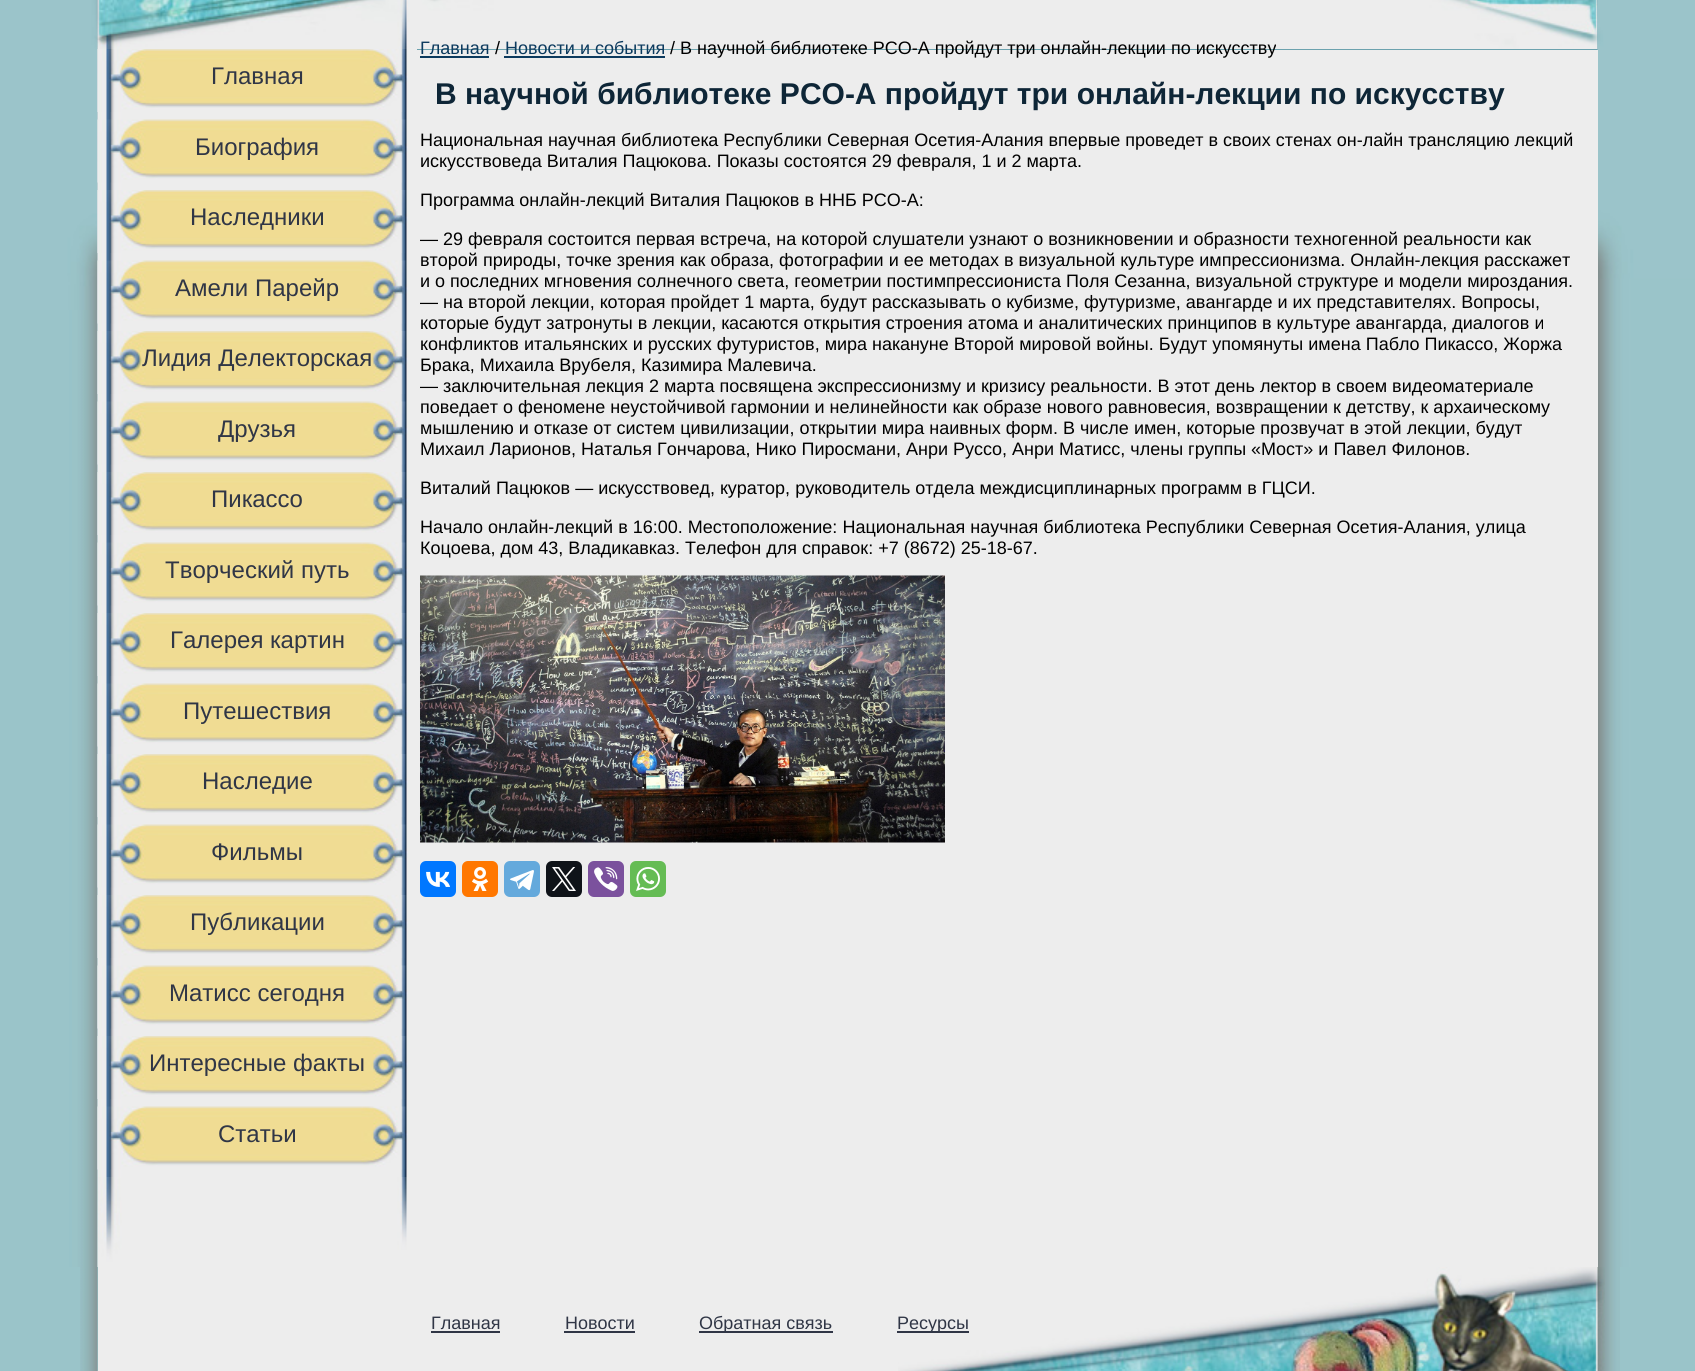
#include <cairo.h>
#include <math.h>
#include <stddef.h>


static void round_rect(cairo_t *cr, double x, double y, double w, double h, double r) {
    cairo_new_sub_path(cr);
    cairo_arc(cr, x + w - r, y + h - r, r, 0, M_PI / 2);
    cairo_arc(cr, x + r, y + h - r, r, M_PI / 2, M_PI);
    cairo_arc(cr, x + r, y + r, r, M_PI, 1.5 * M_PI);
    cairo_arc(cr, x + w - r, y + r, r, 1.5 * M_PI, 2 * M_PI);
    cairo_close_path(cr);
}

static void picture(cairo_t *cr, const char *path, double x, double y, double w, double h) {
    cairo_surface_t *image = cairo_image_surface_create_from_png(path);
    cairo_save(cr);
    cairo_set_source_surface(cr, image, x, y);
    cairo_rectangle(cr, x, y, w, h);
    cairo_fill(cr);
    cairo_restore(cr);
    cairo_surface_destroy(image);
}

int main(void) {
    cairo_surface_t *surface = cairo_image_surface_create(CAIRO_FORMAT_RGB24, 1695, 1371);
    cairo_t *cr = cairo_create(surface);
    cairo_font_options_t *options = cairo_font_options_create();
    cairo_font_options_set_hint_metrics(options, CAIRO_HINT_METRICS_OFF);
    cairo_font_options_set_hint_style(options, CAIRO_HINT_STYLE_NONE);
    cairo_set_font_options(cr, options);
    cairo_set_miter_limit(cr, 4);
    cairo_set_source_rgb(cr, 0.604, 0.769, 0.788);
    cairo_paint(cr);
    picture(cr, "img1.png", 97, 0, 1501, 191);
    picture(cr, "img2.png", 69, 0, 29, 1267);
    picture(cr, "img3.png", 0, 0, 98, 310);
    picture(cr, "img4.png", 97, 0, 1501, 49);
    picture(cr, "img20.png", 1598, 278, 33, 989);
    picture(cr, "img21.png", 1597, 0, 98, 279);
    cairo_set_source_rgb(cr, 0.929, 0.929, 0.929);
    cairo_rectangle(cr, 98, 50, 1500, 1218);
    cairo_fill(cr);
    picture(cr, "img5.png", 97, 1177, 310, 90);
    picture(cr, "img6.png", 97, 49, 320, 1128);
    picture(cr, "img7.png", 97, 49, 311, 63);
    cairo_select_font_face(cr, "Liberation Sans", CAIRO_FONT_SLANT_NORMAL, CAIRO_FONT_WEIGHT_NORMAL);
    cairo_set_font_size(cr, 24);
    cairo_set_source_rgb(cr, 0.188, 0.212, 0.275);
    cairo_move_to(cr, 211, 84);
    cairo_show_text(cr, "Главная");
    picture(cr, "img8.png", 97, 119, 311, 64);
    cairo_move_to(cr, 195, 155);
    cairo_show_text(cr, "Биография");
    picture(cr, "img9.png", 97, 190, 311, 63);
    cairo_move_to(cr, 190, 225);
    cairo_show_text(cr, "Наследники");
    picture(cr, "img10.png", 97, 260, 311, 64);
    cairo_move_to(cr, 175, 296);
    cairo_show_text(cr, "Амели Парейр");
    picture(cr, "img11.png", 97, 331, 311, 63);
    cairo_move_to(cr, 142, 366);
    cairo_show_text(cr, "Лидия Делекторская");
    picture(cr, "img12.png", 97, 401, 311, 64);
    cairo_move_to(cr, 218, 437);
    cairo_show_text(cr, "Друзья");
    picture(cr, "img11.png", 97, 472, 311, 63);
    cairo_move_to(cr, 211, 507);
    cairo_show_text(cr, "Пикассо");
    picture(cr, "img12.png", 97, 542, 311, 64);
    cairo_move_to(cr, 165, 578);
    cairo_show_text(cr, "Творческий путь");
    picture(cr, "img11.png", 97, 613, 311, 63);
    cairo_move_to(cr, 170, 648);
    cairo_show_text(cr, "Галерея картин");
    picture(cr, "img12.png", 97, 683, 311, 64);
    cairo_move_to(cr, 183, 719);
    cairo_show_text(cr, "Путешествия");
    picture(cr, "img11.png", 97, 754, 311, 63);
    cairo_move_to(cr, 202, 789);
    cairo_show_text(cr, "Наследие");
    picture(cr, "img12.png", 97, 824, 311, 64);
    cairo_move_to(cr, 211, 860);
    cairo_show_text(cr, "Фильмы");
    picture(cr, "img11.png", 97, 895, 311, 63);
    cairo_move_to(cr, 190, 930);
    cairo_show_text(cr, "Публикации");
    picture(cr, "img12.png", 97, 965, 311, 64);
    cairo_move_to(cr, 169, 1001);
    cairo_show_text(cr, "Матисс сегодня");
    picture(cr, "img11.png", 97, 1036, 311, 63);
    cairo_move_to(cr, 149, 1071);
    cairo_show_text(cr, "Интересные факты");
    picture(cr, "img12.png", 97, 1106, 311, 64);
    cairo_move_to(cr, 218, 1142);
    cairo_show_text(cr, "Статьи");
    cairo_set_font_size(cr, 18);
    cairo_set_source_rgb(cr, 0.047, 0.227, 0.369);
    cairo_move_to(cr, 420, 54);
    cairo_show_text(cr, "Главная");
    cairo_rectangle(cr, 420, 56, 69, 2);
    cairo_fill(cr);
    cairo_set_source_rgb(cr, 0, 0, 0);
    cairo_move_to(cr, 495, 54);
    cairo_show_text(cr, "/");
    cairo_set_source_rgb(cr, 0.047, 0.227, 0.369);
    cairo_move_to(cr, 505, 54);
    cairo_show_text(cr, "Новости и события");
    cairo_rectangle(cr, 504, 56, 161, 2);
    cairo_fill(cr);
    cairo_set_source_rgb(cr, 0, 0, 0);
    cairo_move_to(cr, 670, 54);
    cairo_show_text(cr, "/ В научной библиотеке РСО-А пройдут три онлайн-лекции по искусству");
    cairo_select_font_face(cr, "Liberation Sans", CAIRO_FONT_SLANT_NORMAL, CAIRO_FONT_WEIGHT_BOLD);
    cairo_set_font_size(cr, 30);
    cairo_set_source_rgb(cr, 0.055, 0.149, 0.216);
    cairo_move_to(cr, 435, 104);
    cairo_show_text(cr, "В научной библиотеке РСО-А пройдут три онлайн-лекции по искусству");
    cairo_select_font_face(cr, "Liberation Sans", CAIRO_FONT_SLANT_NORMAL, CAIRO_FONT_WEIGHT_NORMAL);
    cairo_set_font_size(cr, 18);
    cairo_set_source_rgb(cr, 0, 0, 0);
    cairo_move_to(cr, 420, 146);
    cairo_show_text(cr, "Национальная научная библиотека Республики Северная Осетия-Алания впервые проведет в своих стенах он-лайн трансляцию лекций");
    cairo_move_to(cr, 420, 167);
    cairo_show_text(cr, "искусствоведа Виталия Пацюкова. Показы состоятся 29 февраля, 1 и 2 марта.");
    cairo_move_to(cr, 420, 206);
    cairo_show_text(cr, "Программа онлайн-лекций Виталия Пацюков в ННБ РСО-А:");
    cairo_move_to(cr, 420, 245);
    cairo_show_text(cr, "— 29 февраля состоится первая встреча, на которой слушатели узнают о возникновении и образности техногенной реальности как");
    cairo_move_to(cr, 420, 266);
    cairo_show_text(cr, "второй природы, точке зрения как образа, фотографии и ее методах в визуальной культуре импрессионизма. Онлайн-лекция расскажет");
    cairo_move_to(cr, 420, 287);
    cairo_show_text(cr, "и о последних мгновения солнечного света, геометрии постимпрессиониста Поля Сезанна, визуальной структуре и модели мироздания.");
    cairo_move_to(cr, 420, 308);
    cairo_show_text(cr, "— на второй лекции, которая пройдет 1 марта, будут рассказывать о кубизме, футуризме, авангарде и их представителях. Вопросы,");
    cairo_move_to(cr, 420, 329);
    cairo_show_text(cr, "которые будут затронуты в лекции, касаются открытия строения атома и аналитических принципов в культуре авангарда, диалогов и");
    cairo_move_to(cr, 420, 350);
    cairo_show_text(cr, "конфликтов итальянских и русских футуристов, мира накануне Второй мировой войны. Будут упомянуты имена Пабло Пикассо, Жоржа");
    cairo_move_to(cr, 420, 371);
    cairo_show_text(cr, "Брака, Михаила Врубеля, Казимира Малевича.");
    cairo_move_to(cr, 420, 392);
    cairo_show_text(cr, "— заключительная лекция 2 марта посвящена экспрессионизму и кризису реальности. В этот день лектор в своем видеоматериале");
    cairo_move_to(cr, 420, 413);
    cairo_show_text(cr, "поведает о феномене неустойчивой гармонии и нелинейности как образе нового равновесия, возвращении к детству, к архаическому");
    cairo_move_to(cr, 420, 434);
    cairo_show_text(cr, "мышлению и отказе от систем цивилизации, открытии мира наивных форм. В числе имен, которые прозвучат в этой лекции, будут");
    cairo_move_to(cr, 420, 455);
    cairo_show_text(cr, "Михаил Ларионов, Наталья Гончарова, Нико Пиросмани, Анри Руссо, Анри Матисс, члены группы «Мост» и Павел Филонов.");
    cairo_move_to(cr, 420, 494);
    cairo_show_text(cr, "Виталий Пацюков — искусствовед, куратор, руководитель отдела междисциплинарных программ в ГЦСИ.");
    cairo_move_to(cr, 420, 533);
    cairo_show_text(cr, "Начало онлайн-лекций в 16:00. Местоположение: Национальная научная библиотека Республики Северная Осетия-Алания, улица");
    cairo_move_to(cr, 420, 554);
    cairo_show_text(cr, "Коцоева, дом 43, Владикавказ. Телефон для справок: +7 (8672) 25-18-67.");
    picture(cr, "img13.png", 420, 575, 525, 268);
    cairo_set_source_rgb(cr, 0, 0.467, 1);
    round_rect(cr, 420, 861, 36, 36, 6);
    cairo_fill(cr);
    picture(cr, "img14.png", 426, 871, 24, 16);
    cairo_set_source_rgb(cr, 1, 0.467, 0);
    round_rect(cr, 462, 861, 36, 36, 6);
    cairo_fill(cr);
    picture(cr, "img15.png", 472, 867, 17, 24);
    cairo_set_source_rgb(cr, 0.392, 0.663, 0.863);
    round_rect(cr, 504, 861, 36, 36, 6);
    cairo_fill(cr);
    picture(cr, "img16.png", 510, 870, 24, 21);
    cairo_set_source_rgb(cr, 0.059, 0.078, 0.098);
    round_rect(cr, 546, 861, 36, 36, 6);
    cairo_fill(cr);
    picture(cr, "img17.png", 552, 867, 24, 24);
    cairo_set_source_rgb(cr, 0.482, 0.318, 0.616);
    round_rect(cr, 588, 861, 36, 36, 6);
    cairo_fill(cr);
    picture(cr, "img18.png", 594, 867, 24, 24);
    cairo_set_source_rgb(cr, 0.396, 0.737, 0.329);
    round_rect(cr, 630, 861, 36, 36, 6);
    cairo_fill(cr);
    picture(cr, "img19.png", 636, 867, 24, 24);
    picture(cr, "img22.png", 80, 1267, 18, 104);
    cairo_set_source_rgb(cr, 0.929, 0.929, 0.929);
    cairo_rectangle(cr, 98, 1268, 800, 103);
    cairo_fill(cr);
    cairo_set_source_rgb(cr, 0.188, 0.212, 0.275);
    cairo_move_to(cr, 431, 1329);
    cairo_show_text(cr, "Главная");
    cairo_rectangle(cr, 431, 1331, 69, 2);
    cairo_fill(cr);
    cairo_move_to(cr, 565, 1329);
    cairo_show_text(cr, "Новости");
    cairo_rectangle(cr, 564, 1331, 71, 2);
    cairo_fill(cr);
    cairo_rectangle(cr, 699, 1331, 134, 2);
    cairo_fill(cr);
    cairo_move_to(cr, 699, 1329);
    cairo_show_text(cr, "Обратная связь");
    picture(cr, "img23.png", 898, 1267, 707, 104);
    cairo_rectangle(cr, 897, 1331, 72, 2);
    cairo_fill(cr);
    cairo_move_to(cr, 897, 1329);
    cairo_show_text(cr, "Ресурсы");
    picture(cr, "img24.png", 1605, 1267, 15, 104);
    cairo_surface_write_to_png(surface, "page.png");
    cairo_font_options_destroy(options);
    cairo_destroy(cr);
    cairo_surface_destroy(surface);
    return 0;
}
